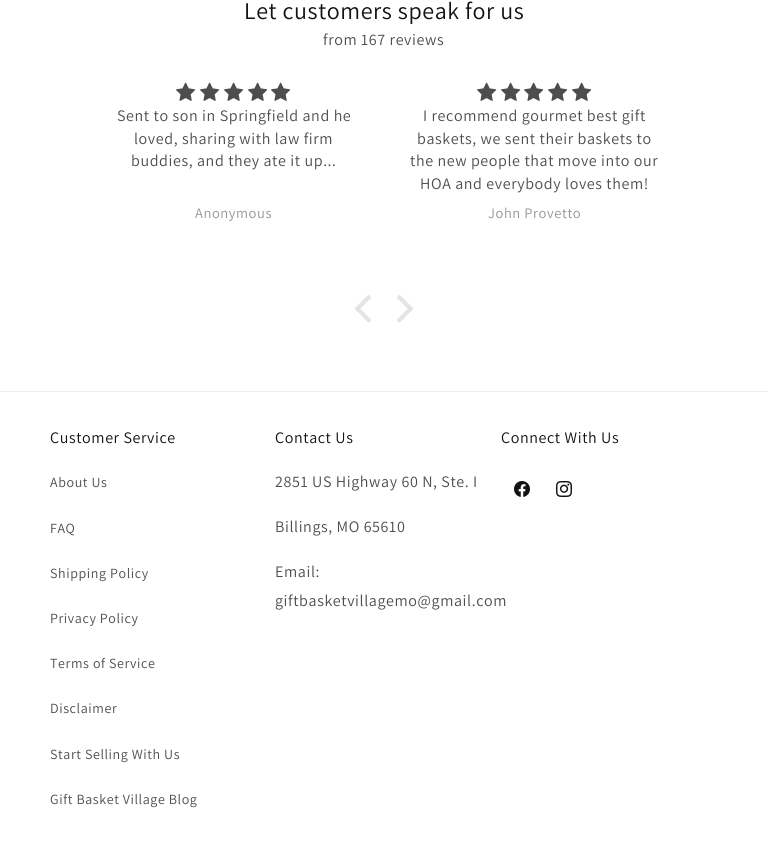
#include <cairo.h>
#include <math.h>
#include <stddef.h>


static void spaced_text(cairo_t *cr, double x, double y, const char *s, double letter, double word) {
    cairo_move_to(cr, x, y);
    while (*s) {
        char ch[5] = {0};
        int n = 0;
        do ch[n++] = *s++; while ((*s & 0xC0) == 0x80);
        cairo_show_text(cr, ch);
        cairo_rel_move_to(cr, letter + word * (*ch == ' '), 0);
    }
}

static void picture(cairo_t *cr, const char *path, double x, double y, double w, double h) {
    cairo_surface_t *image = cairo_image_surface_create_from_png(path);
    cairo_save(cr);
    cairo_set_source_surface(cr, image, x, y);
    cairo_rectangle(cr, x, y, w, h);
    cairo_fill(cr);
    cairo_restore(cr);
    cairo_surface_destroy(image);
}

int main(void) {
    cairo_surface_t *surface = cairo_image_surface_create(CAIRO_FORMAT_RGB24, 768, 851);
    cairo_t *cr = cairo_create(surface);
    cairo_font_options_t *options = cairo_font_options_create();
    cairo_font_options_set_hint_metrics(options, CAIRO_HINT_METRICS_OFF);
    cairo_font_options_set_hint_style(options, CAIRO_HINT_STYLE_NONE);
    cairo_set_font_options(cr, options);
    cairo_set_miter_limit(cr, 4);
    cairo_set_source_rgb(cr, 1, 1, 1);
    cairo_paint(cr);
    cairo_select_font_face(cr, "Assistant", CAIRO_FONT_SLANT_NORMAL, CAIRO_FONT_WEIGHT_NORMAL);
    cairo_set_font_size(cr, 24);
    cairo_set_source_rgb(cr, 0.071, 0.071, 0.071);
    spaced_text(cr, 244, 19, "Let customers speak for us", 0.6, 0);
    cairo_set_font_size(cr, 16);
    cairo_set_source_rgb(cr, 0.302, 0.302, 0.302);
    spaced_text(cr, 323, 45, "from 167 reviews", 0.6, 0);
    picture(cr, "img1.png", 176, 82, 20, 19);
    picture(cr, "img1.png", 200, 82, 20, 19);
    picture(cr, "img1.png", 224, 82, 20, 19);
    picture(cr, "img1.png", 248, 82, 20, 19);
    picture(cr, "img1.png", 271, 82, 20, 19);
    spaced_text(cr, 117, 121, "Sent to son in Springfield and he", 0.6, 0);
    spaced_text(cr, 134, 144, "loved, sharing with law firm", 0.6, 0);
    spaced_text(cr, 131, 166, "buddies, and they ate it up...", 0.6, 0);
    cairo_set_font_size(cr, 14.5);
    cairo_set_source_rgb(cr, 0.584, 0.584, 0.584);
    spaced_text(cr, 195, 218, "Anonymous", 0.6, 0);
    picture(cr, "img1.png", 477, 82, 20, 19);
    picture(cr, "img1.png", 501, 82, 20, 19);
    picture(cr, "img1.png", 524, 82, 20, 19);
    picture(cr, "img1.png", 548, 82, 20, 19);
    picture(cr, "img1.png", 572, 82, 20, 19);
    cairo_set_font_size(cr, 16);
    cairo_set_source_rgb(cr, 0.302, 0.302, 0.302);
    spaced_text(cr, 423, 121, "I recommend gourmet best gift", 0.6, 0);
    spaced_text(cr, 417, 144, "baskets, we sent their baskets to", 0.6, 0);
    spaced_text(cr, 410, 166, "the new people that move into our", 0.6, 0);
    spaced_text(cr, 420, 189, "HOA and everybody loves them!", 0.6, 0);
    cairo_set_font_size(cr, 14.5);
    cairo_set_source_rgb(cr, 0.584, 0.584, 0.584);
    spaced_text(cr, 488, 218, "John Provetto", 0.6, 0);
    cairo_set_source_rgb(cr, 0.894, 0.894, 0.894);
    cairo_new_path(cr);
    cairo_move_to(cr, 354.5, 308.5);
    cairo_line_to(cr, 368.5, 294.5);
    cairo_line_to(cr, 371.5, 297.5);
    cairo_line_to(cr, 357.5, 311.5);
    cairo_close_path(cr);
    cairo_fill(cr);
    cairo_new_path(cr);
    cairo_move_to(cr, 354.5, 308.5);
    cairo_line_to(cr, 357.5, 306);
    cairo_line_to(cr, 371.5, 320);
    cairo_line_to(cr, 368.5, 323);
    cairo_close_path(cr);
    cairo_move_to(cr, 396.5, 297.5);
    cairo_line_to(cr, 399.5, 294.5);
    cairo_line_to(cr, 413.5, 308.5);
    cairo_line_to(cr, 410.5, 311.5);
    cairo_close_path(cr);
    cairo_fill(cr);
    cairo_new_path(cr);
    cairo_move_to(cr, 396.5, 320);
    cairo_line_to(cr, 410.5, 306);
    cairo_line_to(cr, 413.5, 308.5);
    cairo_line_to(cr, 399.5, 323);
    cairo_close_path(cr);
    cairo_fill(cr);
    cairo_set_source_rgb(cr, 0.925, 0.925, 0.925);
    cairo_rectangle(cr, 0, 391, 768, 1);
    cairo_fill(cr);
    cairo_set_font_size(cr, 16);
    cairo_set_source_rgb(cr, 0.071, 0.071, 0.071);
    spaced_text(cr, 50, 443, "Customer Service", 0.6, 0);
    cairo_set_font_size(cr, 14);
    cairo_set_source_rgb(cr, 0.302, 0.302, 0.302);
    spaced_text(cr, 50, 487, "About Us", 0.6, 0);
    spaced_text(cr, 50, 533, "FAQ", 0.6, 0);
    spaced_text(cr, 50, 578, "Shipping Policy", 0.6, 0);
    spaced_text(cr, 50, 623, "Privacy Policy", 0.6, 0);
    spaced_text(cr, 50, 668, "Terms of Service", 0.6, 0);
    spaced_text(cr, 50, 713, "Disclaimer", 0.6, 0);
    spaced_text(cr, 50, 759, "Start Selling With Us", 0.6, 0);
    spaced_text(cr, 50, 804, "Gift Basket Village Blog", 0.6, 0);
    cairo_set_font_size(cr, 16);
    cairo_set_source_rgb(cr, 0.071, 0.071, 0.071);
    spaced_text(cr, 275, 443, "Contact Us", 0.6, 0);
    cairo_set_source_rgb(cr, 0.302, 0.302, 0.302);
    spaced_text(cr, 275, 487, "2851 US Highway 60 N, Ste. I", 0.6, 0);
    spaced_text(cr, 275, 532, "Billings, MO 65610", 0.6, 0);
    spaced_text(cr, 275, 577, "Email:", 0.6, 0);
    spaced_text(cr, 275, 606, "giftbasketvillagemo@gmail.com", 0.6, 0);
    cairo_set_source_rgb(cr, 0.071, 0.071, 0.071);
    spaced_text(cr, 501, 443, "Connect With Us", 0.6, 0);
    picture(cr, "img2.png", 514, 481, 16, 16);
    picture(cr, "img3.png", 556, 481, 16, 16);
    cairo_surface_write_to_png(surface, "page.png");
    cairo_font_options_destroy(options);
    cairo_destroy(cr);
    cairo_surface_destroy(surface);
    return 0;
}
